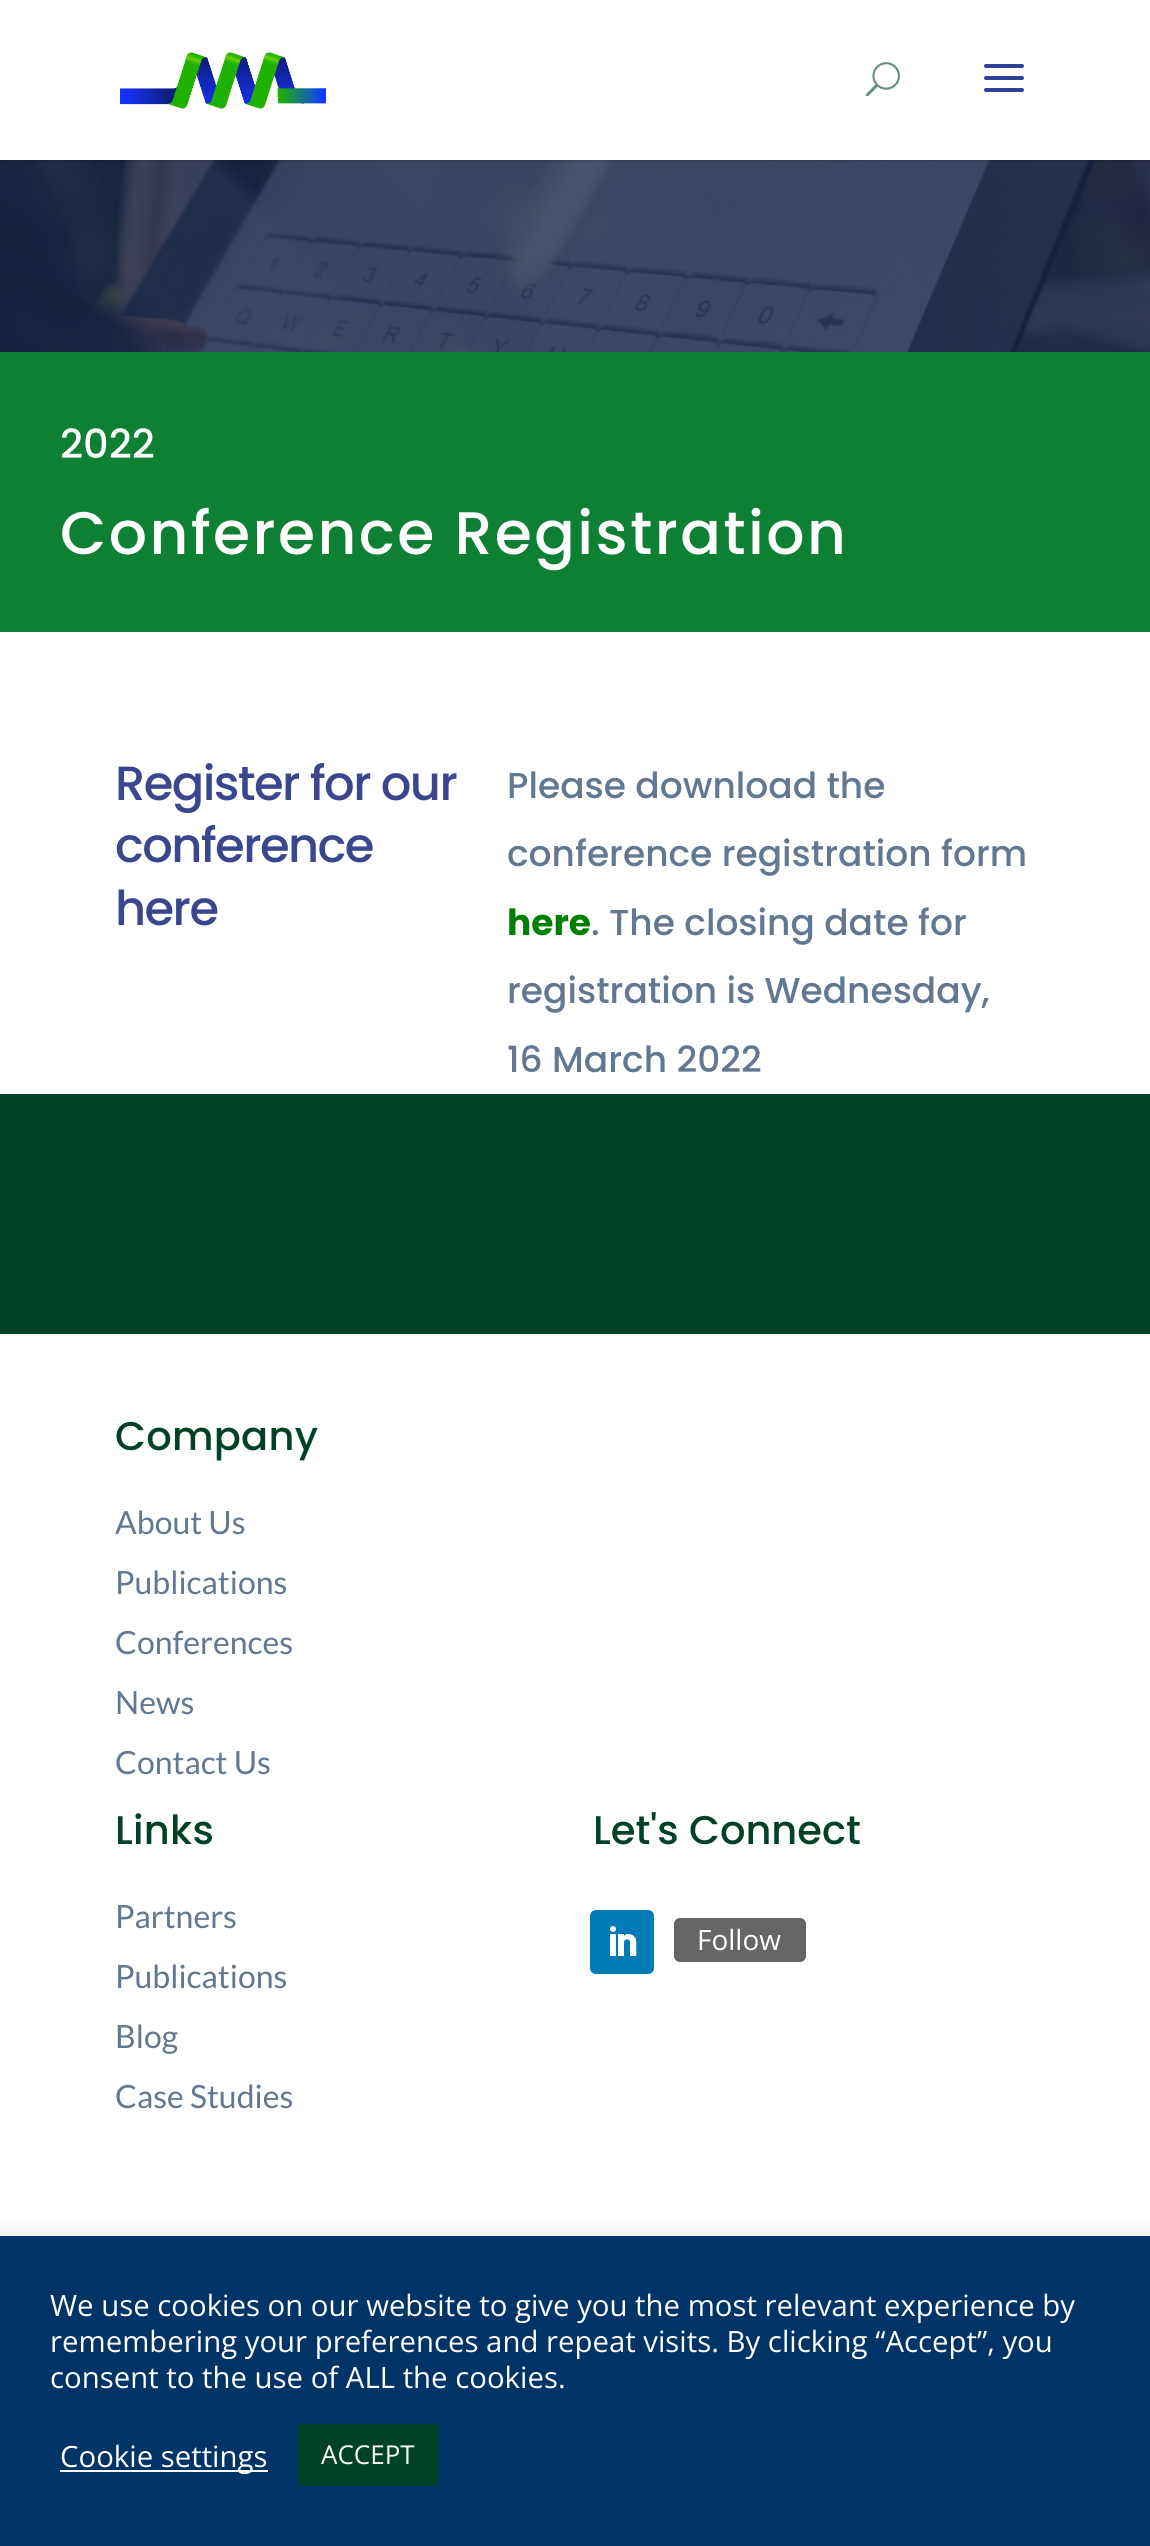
#include <cairo.h>
#include <math.h>
#include <stddef.h>


static void spaced_text(cairo_t *cr, double x, double y, const char *s, double letter, double word) {
    cairo_move_to(cr, x, y);
    while (*s) {
        char ch[5] = {0};
        int n = 0;
        do ch[n++] = *s++; while ((*s & 0xC0) == 0x80);
        cairo_show_text(cr, ch);
        cairo_rel_move_to(cr, letter + word * (*ch == ' '), 0);
    }
}

static void round_rect(cairo_t *cr, double x, double y, double w, double h, double r) {
    cairo_new_sub_path(cr);
    cairo_arc(cr, x + w - r, y + h - r, r, 0, M_PI / 2);
    cairo_arc(cr, x + r, y + h - r, r, M_PI / 2, M_PI);
    cairo_arc(cr, x + r, y + r, r, M_PI, 1.5 * M_PI);
    cairo_arc(cr, x + w - r, y + r, r, 1.5 * M_PI, 2 * M_PI);
    cairo_close_path(cr);
}

static void shadow(cairo_t *cr, double x, double y, double w, double h, double r, double blur, double alpha) {
    cairo_push_group_with_content(cr, CAIRO_CONTENT_ALPHA);
    cairo_set_operator(cr, CAIRO_OPERATOR_SOURCE);
    for (int i = 15; i >= -15 && fmin(w, h) + blur * i / 3 > 0; i -= 2) {
        double e = blur * i / 6;
        cairo_set_source_rgba(cr, 0, 0, 0, alpha * erfc((i - 1) / 8.5) / 2);
        round_rect(cr, x - e, y - e, w + 2 * e, h + 2 * e, fmax(0, fmin(r + e + blur * .6, fmin(w, h) / 2 + e)));
        cairo_fill(cr);
    }
    cairo_pattern_t *soft = cairo_pop_group(cr);
    cairo_mask(cr, soft);
    cairo_pattern_destroy(soft);
}

static void picture(cairo_t *cr, const char *path, double x, double y, double w, double h) {
    cairo_surface_t *image = cairo_image_surface_create_from_png(path);
    cairo_save(cr);
    cairo_set_source_surface(cr, image, x, y);
    cairo_rectangle(cr, x, y, w, h);
    cairo_fill(cr);
    cairo_restore(cr);
    cairo_surface_destroy(image);
}

int main(void) {
    cairo_surface_t *surface = cairo_image_surface_create(CAIRO_FORMAT_RGB24, 1150, 2546);
    cairo_t *cr = cairo_create(surface);
    cairo_font_options_t *options = cairo_font_options_create();
    cairo_font_options_set_hint_metrics(options, CAIRO_HINT_METRICS_OFF);
    cairo_font_options_set_hint_style(options, CAIRO_HINT_STYLE_NONE);
    cairo_set_font_options(cr, options);
    cairo_set_miter_limit(cr, 4);
    cairo_set_source_rgb(cr, 1, 1, 1);
    cairo_paint(cr);
    picture(cr, "img4.png", 0, 160, 1150, 192);
    cairo_set_source_rgba(cr, 0, 0, 0, 0.1);
    cairo_rectangle(cr, 0, 160, 1150, 2);
    cairo_fill(cr);
    picture(cr, "img1.png", 120, 52, 206, 57);
    picture(cr, "img2.png", 865, 62, 35, 35);
    picture(cr, "img3.png", 984, 64, 40, 28);
    cairo_set_source_rgb(cr, 0.055, 0.502, 0.2);
    cairo_rectangle(cr, 0, 352, 1150, 280);
    cairo_fill(cr);
    cairo_select_font_face(cr, "Poppins Medium", CAIRO_FONT_SLANT_NORMAL, CAIRO_FONT_WEIGHT_NORMAL);
    cairo_set_font_size(cr, 40);
    cairo_set_source_rgb(cr, 1, 1, 1);
    cairo_move_to(cr, 60, 458);
    cairo_show_text(cr, "2022");
    cairo_set_font_size(cr, 60);
    spaced_text(cr, 60, 554, "Conference Registration", 2.4, 0);
    cairo_set_font_size(cr, 48);
    cairo_set_source_rgb(cr, 0.227, 0.278, 0.561);
    spaced_text(cr, 115, 800, "Register for our", -1.6, 0);
    spaced_text(cr, 115, 862, "conference", -1.6, 0);
    spaced_text(cr, 115, 925, "here", -1.6, 0);
    cairo_set_font_size(cr, 36);
    cairo_set_source_rgb(cr, 0.384, 0.467, 0.573);
    cairo_move_to(cr, 507, 798);
    cairo_show_text(cr, "Please download the");
    cairo_move_to(cr, 507, 866);
    cairo_show_text(cr, "conference registration form");
    cairo_select_font_face(cr, "Poppins", CAIRO_FONT_SLANT_NORMAL, CAIRO_FONT_WEIGHT_BOLD);
    cairo_set_source_rgb(cr, 0, 0.502, 0);
    cairo_move_to(cr, 507, 935);
    cairo_show_text(cr, "here");
    cairo_select_font_face(cr, "Poppins Medium", CAIRO_FONT_SLANT_NORMAL, CAIRO_FONT_WEIGHT_NORMAL);
    cairo_set_source_rgb(cr, 0.384, 0.467, 0.573);
    cairo_move_to(cr, 591, 935);
    cairo_show_text(cr, ". The closing date for");
    cairo_move_to(cr, 507, 1003);
    cairo_show_text(cr, "registration is Wednesday,");
    cairo_move_to(cr, 507, 1072);
    cairo_show_text(cr, "16 March 2022");
    cairo_set_source_rgb(cr, 0, 0.259, 0.145);
    cairo_rectangle(cr, 0, 1094, 1150, 240);
    cairo_fill(cr);
    cairo_set_font_size(cr, 40);
    spaced_text(cr, 115, 1450, "Company", 0.25, 0);
    cairo_select_font_face(cr, "Lato", CAIRO_FONT_SLANT_NORMAL, CAIRO_FONT_WEIGHT_NORMAL);
    cairo_set_font_size(cr, 32);
    cairo_set_source_rgb(cr, 0.384, 0.467, 0.573);
    cairo_move_to(cr, 115, 1534);
    cairo_show_text(cr, "About Us");
    cairo_move_to(cr, 115, 1594);
    cairo_show_text(cr, "Publications");
    cairo_move_to(cr, 115, 1654);
    cairo_show_text(cr, "Conferences");
    cairo_move_to(cr, 115, 1714);
    cairo_show_text(cr, "News");
    cairo_move_to(cr, 115, 1774);
    cairo_show_text(cr, "Contact Us");
    cairo_select_font_face(cr, "Poppins Medium", CAIRO_FONT_SLANT_NORMAL, CAIRO_FONT_WEIGHT_NORMAL);
    cairo_set_font_size(cr, 40);
    cairo_set_source_rgb(cr, 0, 0.259, 0.145);
    spaced_text(cr, 115, 1844, "Links", 0.25, 0);
    cairo_select_font_face(cr, "Lato", CAIRO_FONT_SLANT_NORMAL, CAIRO_FONT_WEIGHT_NORMAL);
    cairo_set_font_size(cr, 32);
    cairo_set_source_rgb(cr, 0.384, 0.467, 0.573);
    cairo_move_to(cr, 115, 1928);
    cairo_show_text(cr, "Partners");
    cairo_move_to(cr, 115, 1988);
    cairo_show_text(cr, "Publications");
    cairo_move_to(cr, 115, 2048);
    cairo_show_text(cr, "Blog");
    cairo_move_to(cr, 115, 2108);
    cairo_show_text(cr, "Case Studies");
    cairo_select_font_face(cr, "Poppins Medium", CAIRO_FONT_SLANT_NORMAL, CAIRO_FONT_WEIGHT_NORMAL);
    cairo_set_font_size(cr, 40);
    cairo_set_source_rgb(cr, 0, 0.259, 0.145);
    cairo_move_to(cr, 593, 1844);
    cairo_show_text(cr, "Let's Connect");
    cairo_set_source_rgb(cr, 0, 0.482, 0.714);
    round_rect(cr, 590, 1910, 64, 64, 6);
    cairo_fill(cr);
    picture(cr, "img5.png", 610, 1926, 27, 30);
    cairo_set_source_rgb(cr, 0.4, 0.4, 0.4);
    round_rect(cr, 674, 1918, 132, 44, 6);
    cairo_fill(cr);
    cairo_select_font_face(cr, "Open Sans", CAIRO_FONT_SLANT_NORMAL, CAIRO_FONT_WEIGHT_NORMAL);
    cairo_set_font_size(cr, 28);
    cairo_set_source_rgb(cr, 1, 1, 1);
    cairo_move_to(cr, 697, 1950);
    cairo_show_text(cr, "Follow");
    cairo_set_source_rgb(cr, 0.675, 0.671, 0.671);
    shadow(cr, 0, 2234, 1150, 310, 0, 10, 0.3);
    cairo_set_source_rgb(cr, 0, 0.2, 0.4);
    cairo_rectangle(cr, 0, 2236, 1150, 310);
    cairo_fill(cr);
    cairo_set_font_size(cr, 29.35);
    cairo_set_source_rgb(cr, 1, 1, 1);
    cairo_move_to(cr, 50, 2316);
    cairo_show_text(cr, "We use cookies on our website to give you the most relevant experience by");
    cairo_move_to(cr, 50, 2352);
    cairo_show_text(cr, "remembering your preferences and repeat visits. By clicking “Accept”, you");
    cairo_move_to(cr, 50, 2388);
    cairo_show_text(cr, "consent to the use of ALL the cookies.");
    cairo_rectangle(cr, 60, 2470, 208, 2);
    cairo_fill(cr);
    cairo_move_to(cr, 60, 2467);
    cairo_show_text(cr, "Cookie settings");
    cairo_set_source_rgb(cr, 0, 0.259, 0.145);
    cairo_rectangle(cr, 298, 2424, 140, 62);
    cairo_fill(cr);
    cairo_set_font_size(cr, 26);
    cairo_set_source_rgb(cr, 1, 1, 1);
    cairo_move_to(cr, 321, 2464);
    cairo_show_text(cr, "ACCEPT");
    cairo_surface_write_to_png(surface, "page.png");
    cairo_font_options_destroy(options);
    cairo_destroy(cr);
    cairo_surface_destroy(surface);
    return 0;
}
